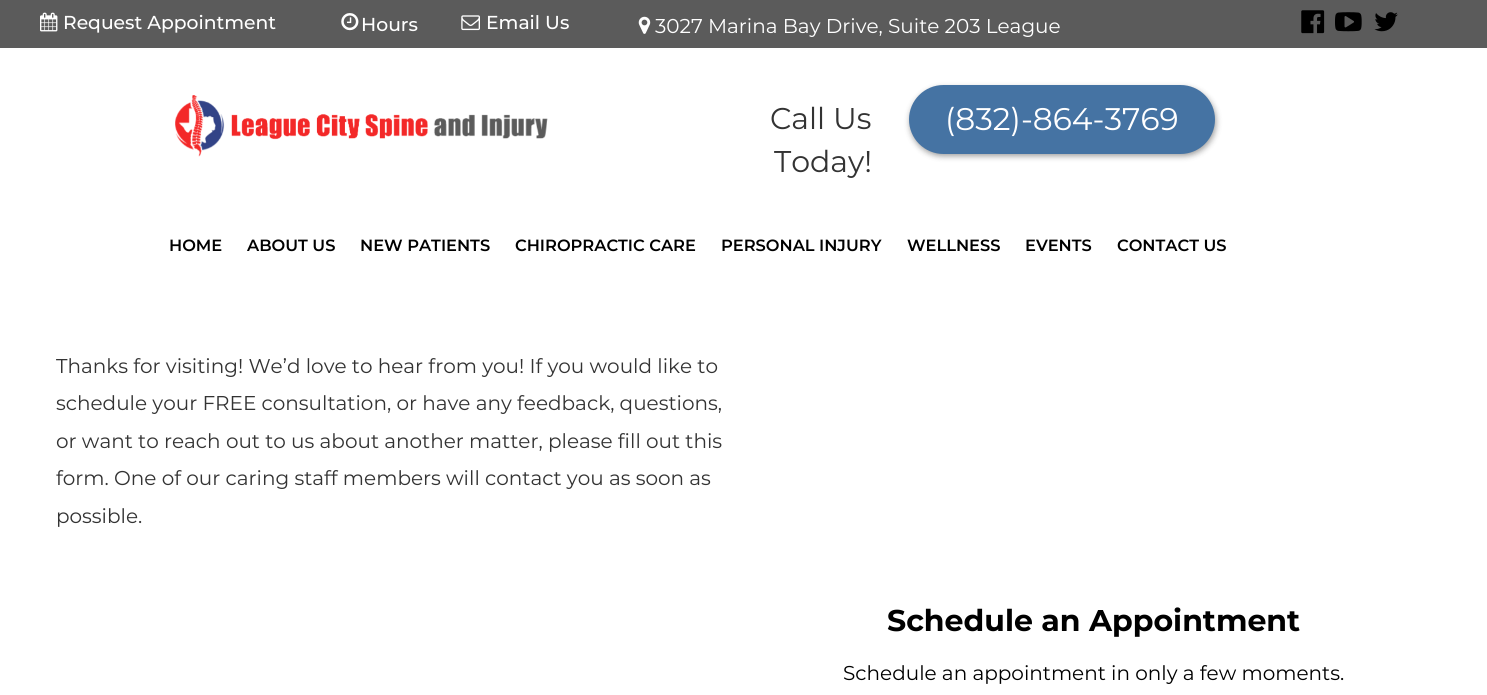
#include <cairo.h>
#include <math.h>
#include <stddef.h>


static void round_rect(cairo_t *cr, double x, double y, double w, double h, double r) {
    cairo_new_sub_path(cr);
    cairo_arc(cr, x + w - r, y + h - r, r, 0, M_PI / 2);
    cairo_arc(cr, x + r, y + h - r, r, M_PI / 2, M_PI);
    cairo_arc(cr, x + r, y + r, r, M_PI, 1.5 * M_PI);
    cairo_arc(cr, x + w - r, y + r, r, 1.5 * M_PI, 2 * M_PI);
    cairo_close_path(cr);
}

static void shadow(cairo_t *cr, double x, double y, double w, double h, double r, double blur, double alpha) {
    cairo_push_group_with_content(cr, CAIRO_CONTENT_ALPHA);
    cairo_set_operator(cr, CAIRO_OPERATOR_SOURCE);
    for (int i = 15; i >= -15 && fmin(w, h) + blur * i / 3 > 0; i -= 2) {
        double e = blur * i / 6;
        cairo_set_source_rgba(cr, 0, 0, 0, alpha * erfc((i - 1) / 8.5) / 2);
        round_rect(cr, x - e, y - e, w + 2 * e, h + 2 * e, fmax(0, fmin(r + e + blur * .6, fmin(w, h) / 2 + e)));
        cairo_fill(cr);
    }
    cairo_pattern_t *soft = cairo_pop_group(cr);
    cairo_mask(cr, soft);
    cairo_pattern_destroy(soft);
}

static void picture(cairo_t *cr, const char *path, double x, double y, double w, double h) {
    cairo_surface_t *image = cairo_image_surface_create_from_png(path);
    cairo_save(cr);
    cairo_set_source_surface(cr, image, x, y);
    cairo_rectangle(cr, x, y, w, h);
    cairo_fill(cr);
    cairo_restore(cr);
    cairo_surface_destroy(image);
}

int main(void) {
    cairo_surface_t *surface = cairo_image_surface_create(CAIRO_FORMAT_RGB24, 1487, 695);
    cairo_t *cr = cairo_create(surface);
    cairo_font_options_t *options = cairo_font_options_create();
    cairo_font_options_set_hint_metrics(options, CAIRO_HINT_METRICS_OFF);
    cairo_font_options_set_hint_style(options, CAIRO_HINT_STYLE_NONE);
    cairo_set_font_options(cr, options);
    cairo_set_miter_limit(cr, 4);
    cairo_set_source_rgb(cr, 1, 1, 1);
    cairo_paint(cr);
    cairo_set_source_rgb(cr, 0.357, 0.357, 0.357);
    cairo_rectangle(cr, 0, 0, 1487, 48);
    cairo_fill(cr);
    picture(cr, "img1.png", 40, 12, 18, 20);
    cairo_select_font_face(cr, "Montserrat Medium", CAIRO_FONT_SLANT_NORMAL, CAIRO_FONT_WEIGHT_NORMAL);
    cairo_set_font_size(cr, 18.75);
    cairo_set_source_rgb(cr, 1, 1, 1);
    cairo_move_to(cr, 63, 29);
    cairo_show_text(cr, "Request Appointment");
    picture(cr, "img2.png", 341, 13, 18, 18);
    cairo_move_to(cr, 361, 31);
    cairo_show_text(cr, "Hours");
    picture(cr, "img3.png", 461, 15, 19, 16);
    cairo_move_to(cr, 486, 29);
    cairo_show_text(cr, "Email Us");
    picture(cr, "img4.png", 638, 16, 13, 18);
    cairo_select_font_face(cr, "Montserrat", CAIRO_FONT_SLANT_NORMAL, CAIRO_FONT_WEIGHT_NORMAL);
    cairo_set_font_size(cr, 20);
    cairo_move_to(cr, 655, 33);
    cairo_show_text(cr, "3027 Marina Bay Drive, Suite 203 League");
    picture(cr, "img5.png", 1301, 10, 24, 24);
    picture(cr, "img6.png", 1335, 12, 27, 20);
    picture(cr, "img7.png", 1374, 12, 24, 20);
    picture(cr, "img8.png", 175, 95, 373, 62);
    cairo_set_font_size(cr, 30);
    cairo_set_source_rgb(cr, 0.2, 0.2, 0.2);
    cairo_move_to(cr, 770, 129);
    cairo_show_text(cr, "Call Us");
    cairo_move_to(cr, 774, 172);
    cairo_show_text(cr, "Today!");
    cairo_set_source_rgb(cr, 0, 0, 0);
    shadow(cr, 910, 88, 306, 68, 34, 3, 0.39);
    cairo_set_source_rgb(cr, 0.271, 0.451, 0.639);
    round_rect(cr, 909, 85, 306, 69, 34.5);
    cairo_fill(cr);
    cairo_set_font_size(cr, 31.25);
    cairo_set_source_rgb(cr, 1, 1, 1);
    cairo_move_to(cr, 945, 130);
    cairo_show_text(cr, "(832)-864-3769");
    cairo_select_font_face(cr, "Montserrat SemiBold", CAIRO_FONT_SLANT_NORMAL, CAIRO_FONT_WEIGHT_NORMAL);
    cairo_set_font_size(cr, 16.25);
    cairo_set_source_rgb(cr, 0, 0, 0);
    cairo_move_to(cr, 169, 251);
    cairo_show_text(cr, "HOME");
    cairo_move_to(cr, 247, 251);
    cairo_show_text(cr, "ABOUT US");
    cairo_move_to(cr, 360, 251);
    cairo_show_text(cr, "NEW PATIENTS");
    cairo_move_to(cr, 515, 251);
    cairo_show_text(cr, "CHIROPRACTIC CARE");
    cairo_move_to(cr, 721, 251);
    cairo_show_text(cr, "PERSONAL INJURY");
    cairo_move_to(cr, 907, 251);
    cairo_show_text(cr, "WELLNESS");
    cairo_move_to(cr, 1025, 251);
    cairo_show_text(cr, "EVENTS");
    cairo_move_to(cr, 1117, 251);
    cairo_show_text(cr, "CONTACT US");
    cairo_select_font_face(cr, "Montserrat", CAIRO_FONT_SLANT_NORMAL, CAIRO_FONT_WEIGHT_NORMAL);
    cairo_set_font_size(cr, 20);
    cairo_set_source_rgb(cr, 0.2, 0.2, 0.2);
    cairo_move_to(cr, 56, 373);
    cairo_show_text(cr, "Thanks for visiting! We’d love to hear from you! If you would like to");
    cairo_move_to(cr, 56, 410);
    cairo_show_text(cr, "schedule your FREE consultation, or have any feedback, questions,");
    cairo_move_to(cr, 56, 448);
    cairo_show_text(cr, "or want to reach out to us about another matter, please fill out this");
    cairo_move_to(cr, 56, 485);
    cairo_show_text(cr, "form. One of our caring staff members will contact you as soon as");
    cairo_move_to(cr, 56, 523);
    cairo_show_text(cr, "possible.");
    cairo_select_font_face(cr, "Montserrat", CAIRO_FONT_SLANT_NORMAL, CAIRO_FONT_WEIGHT_BOLD);
    cairo_set_font_size(cr, 30);
    cairo_set_source_rgb(cr, 0, 0, 0);
    cairo_move_to(cr, 887, 631);
    cairo_show_text(cr, "Schedule an Appointment");
    cairo_select_font_face(cr, "Montserrat", CAIRO_FONT_SLANT_NORMAL, CAIRO_FONT_WEIGHT_NORMAL);
    cairo_set_font_size(cr, 20);
    cairo_move_to(cr, 843, 680);
    cairo_show_text(cr, "Schedule an appointment in only a few moments.");
    cairo_surface_write_to_png(surface, "page.png");
    cairo_font_options_destroy(options);
    cairo_destroy(cr);
    cairo_surface_destroy(surface);
    return 0;
}
